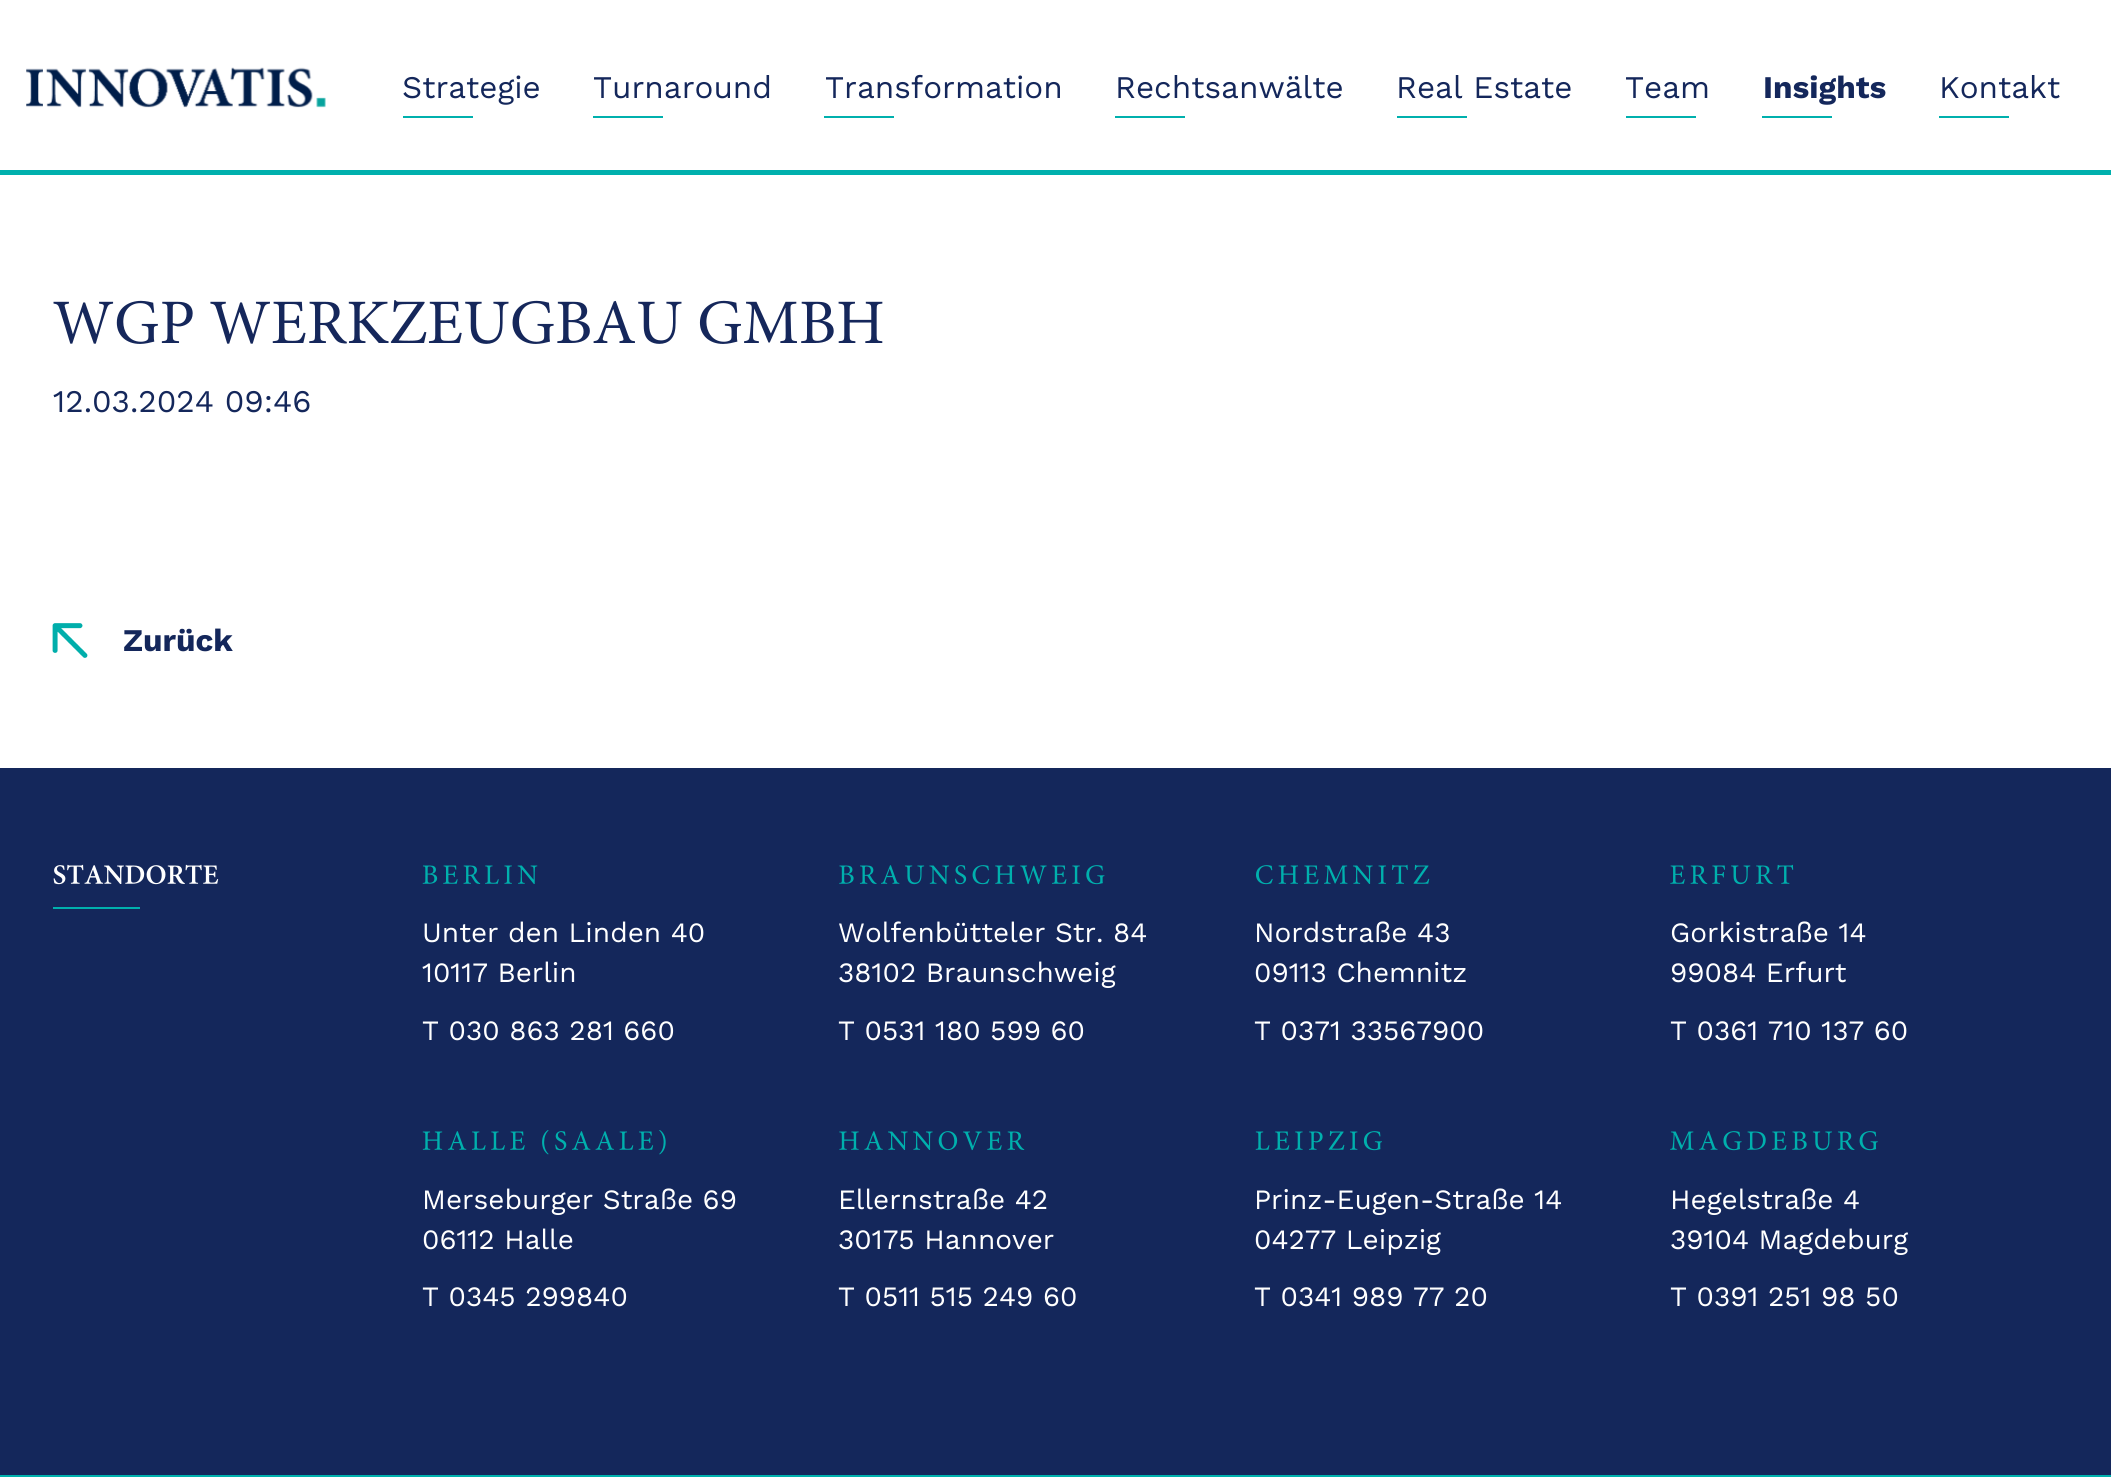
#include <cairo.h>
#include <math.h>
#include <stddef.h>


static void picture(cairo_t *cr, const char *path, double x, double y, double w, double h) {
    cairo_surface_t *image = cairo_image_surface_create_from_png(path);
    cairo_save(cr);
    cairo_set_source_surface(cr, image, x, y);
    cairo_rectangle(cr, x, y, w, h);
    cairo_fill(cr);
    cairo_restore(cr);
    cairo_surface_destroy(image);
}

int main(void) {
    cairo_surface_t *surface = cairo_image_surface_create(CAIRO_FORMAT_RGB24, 2111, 1477);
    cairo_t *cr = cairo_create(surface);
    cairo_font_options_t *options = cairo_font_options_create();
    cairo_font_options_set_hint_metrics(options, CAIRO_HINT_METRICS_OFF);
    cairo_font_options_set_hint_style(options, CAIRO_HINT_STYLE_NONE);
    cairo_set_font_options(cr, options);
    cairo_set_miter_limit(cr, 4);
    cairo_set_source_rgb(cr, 1, 1, 1);
    cairo_paint(cr);
    cairo_set_source_rgb(cr, 0, 0.69, 0.678);
    cairo_rectangle(cr, 0, 170, 2111, 5);
    cairo_fill(cr);
    picture(cr, "img1.png", 26, 67, 300, 41);
    cairo_select_font_face(cr, "Work Sans", CAIRO_FONT_SLANT_NORMAL, CAIRO_FONT_WEIGHT_NORMAL);
    cairo_set_font_size(cr, 31.5);
    cairo_set_source_rgb(cr, 0.082, 0.153, 0.357);
    cairo_move_to(cr, 402, 98);
    cairo_show_text(cr, "Strategie");
    cairo_set_source_rgb(cr, 0, 0.69, 0.678);
    cairo_rectangle(cr, 403, 116, 70, 2);
    cairo_fill(cr);
    cairo_set_source_rgb(cr, 0.082, 0.153, 0.357);
    cairo_move_to(cr, 593, 98);
    cairo_show_text(cr, "Turnaround");
    cairo_set_source_rgb(cr, 0, 0.69, 0.678);
    cairo_rectangle(cr, 593, 116, 70, 2);
    cairo_fill(cr);
    cairo_set_source_rgb(cr, 0.082, 0.153, 0.357);
    cairo_move_to(cr, 825, 98);
    cairo_show_text(cr, "Transformation");
    cairo_set_source_rgb(cr, 0, 0.69, 0.678);
    cairo_rectangle(cr, 824, 116, 70, 2);
    cairo_fill(cr);
    cairo_set_source_rgb(cr, 0.082, 0.153, 0.357);
    cairo_move_to(cr, 1115, 98);
    cairo_show_text(cr, "Rechtsanwälte");
    cairo_set_source_rgb(cr, 0, 0.69, 0.678);
    cairo_rectangle(cr, 1115, 116, 70, 2);
    cairo_fill(cr);
    cairo_set_source_rgb(cr, 0.082, 0.153, 0.357);
    cairo_move_to(cr, 1396, 98);
    cairo_show_text(cr, "Real Estate");
    cairo_set_source_rgb(cr, 0, 0.69, 0.678);
    cairo_rectangle(cr, 1397, 116, 70, 2);
    cairo_fill(cr);
    cairo_set_source_rgb(cr, 0.082, 0.153, 0.357);
    cairo_move_to(cr, 1625, 98);
    cairo_show_text(cr, "Team");
    cairo_set_source_rgb(cr, 0, 0.69, 0.678);
    cairo_rectangle(cr, 1626, 116, 70, 2);
    cairo_fill(cr);
    cairo_select_font_face(cr, "Work Sans", CAIRO_FONT_SLANT_NORMAL, CAIRO_FONT_WEIGHT_BOLD);
    cairo_set_source_rgb(cr, 0.082, 0.153, 0.357);
    cairo_move_to(cr, 1763, 98);
    cairo_show_text(cr, "Insights");
    cairo_set_source_rgb(cr, 0, 0.69, 0.678);
    cairo_rectangle(cr, 1762, 116, 70, 2);
    cairo_fill(cr);
    cairo_select_font_face(cr, "Work Sans", CAIRO_FONT_SLANT_NORMAL, CAIRO_FONT_WEIGHT_NORMAL);
    cairo_set_source_rgb(cr, 0.082, 0.153, 0.357);
    cairo_move_to(cr, 1939, 98);
    cairo_show_text(cr, "Kontakt");
    cairo_set_source_rgb(cr, 0, 0.69, 0.678);
    cairo_rectangle(cr, 1939, 116, 70, 2);
    cairo_fill(cr);
    picture(cr, "img2.png", 53, 300, 830, 44);
    cairo_set_source_rgb(cr, 0.082, 0.153, 0.357);
    cairo_move_to(cr, 53, 412);
    cairo_show_text(cr, "12.03.2024 09:46");
    picture(cr, "img3.png", 52, 623, 36, 35);
    cairo_select_font_face(cr, "Work Sans", CAIRO_FONT_SLANT_NORMAL, CAIRO_FONT_WEIGHT_BOLD);
    cairo_move_to(cr, 123, 651);
    cairo_show_text(cr, "Zurück");
    cairo_rectangle(cr, 0, 768, 2111, 707);
    cairo_fill(cr);
    picture(cr, "img4.png", 53, 864, 166, 21);
    cairo_set_source_rgb(cr, 0, 0.69, 0.678);
    cairo_rectangle(cr, 53, 907, 87, 2);
    cairo_fill(cr);
    picture(cr, "img5.png", 422, 865, 116, 19);
    cairo_select_font_face(cr, "Work Sans", CAIRO_FONT_SLANT_NORMAL, CAIRO_FONT_WEIGHT_NORMAL);
    cairo_set_font_size(cr, 28);
    cairo_set_source_rgb(cr, 1, 1, 1);
    cairo_move_to(cr, 422, 942);
    cairo_show_text(cr, "Unter den Linden 40");
    cairo_move_to(cr, 422, 982);
    cairo_show_text(cr, "10117 Berlin");
    cairo_move_to(cr, 422, 1040);
    cairo_show_text(cr, "T 030 863 281 660");
    picture(cr, "img6.png", 839, 865, 266, 20);
    cairo_move_to(cr, 838, 942);
    cairo_show_text(cr, "Wolfenbütteler Str. 84");
    cairo_move_to(cr, 838, 982);
    cairo_show_text(cr, "38102 Braunschweig");
    cairo_move_to(cr, 838, 1040);
    cairo_show_text(cr, "T 0531 180 599 60");
    picture(cr, "img7.png", 1256, 864, 174, 21);
    cairo_move_to(cr, 1254, 942);
    cairo_show_text(cr, "Nordstraße 43");
    cairo_move_to(cr, 1254, 982);
    cairo_show_text(cr, "09113 Chemnitz");
    cairo_move_to(cr, 1254, 1040);
    cairo_show_text(cr, "T 0371 33567900");
    picture(cr, "img8.png", 1670, 864, 124, 21);
    cairo_move_to(cr, 1670, 942);
    cairo_show_text(cr, "Gorkistraße 14");
    cairo_move_to(cr, 1670, 982);
    cairo_show_text(cr, "99084 Erfurt");
    cairo_move_to(cr, 1670, 1040);
    cairo_show_text(cr, "T 0361 710 137 60");
    picture(cr, "img9.png", 422, 1130, 244, 25);
    cairo_move_to(cr, 422, 1209);
    cairo_show_text(cr, "Merseburger Straße 69");
    cairo_move_to(cr, 422, 1249);
    cairo_show_text(cr, "06112 Halle");
    cairo_move_to(cr, 422, 1306);
    cairo_show_text(cr, "T 0345 299840");
    picture(cr, "img10.png", 839, 1131, 186, 20);
    cairo_move_to(cr, 838, 1209);
    cairo_show_text(cr, "Ellernstraße 42");
    cairo_move_to(cr, 838, 1249);
    cairo_show_text(cr, "30175 Hannover");
    cairo_move_to(cr, 838, 1306);
    cairo_show_text(cr, "T 0511 515 249 60");
    picture(cr, "img11.png", 1255, 1130, 127, 21);
    cairo_move_to(cr, 1254, 1209);
    cairo_show_text(cr, "Prinz-Eugen-Straße 14");
    cairo_move_to(cr, 1254, 1249);
    cairo_show_text(cr, "04277 Leipzig");
    cairo_move_to(cr, 1254, 1306);
    cairo_show_text(cr, "T 0341 989 77 20");
    picture(cr, "img12.png", 1670, 1131, 208, 20);
    cairo_move_to(cr, 1670, 1209);
    cairo_show_text(cr, "Hegelstraße 4");
    cairo_move_to(cr, 1670, 1249);
    cairo_show_text(cr, "39104 Magdeburg");
    cairo_move_to(cr, 1670, 1306);
    cairo_show_text(cr, "T 0391 251 98 50");
    cairo_set_source_rgb(cr, 0, 0.69, 0.678);
    cairo_rectangle(cr, 0, 1475, 2111, 2);
    cairo_fill(cr);
    cairo_surface_write_to_png(surface, "page.png");
    cairo_font_options_destroy(options);
    cairo_destroy(cr);
    cairo_surface_destroy(surface);
    return 0;
}
